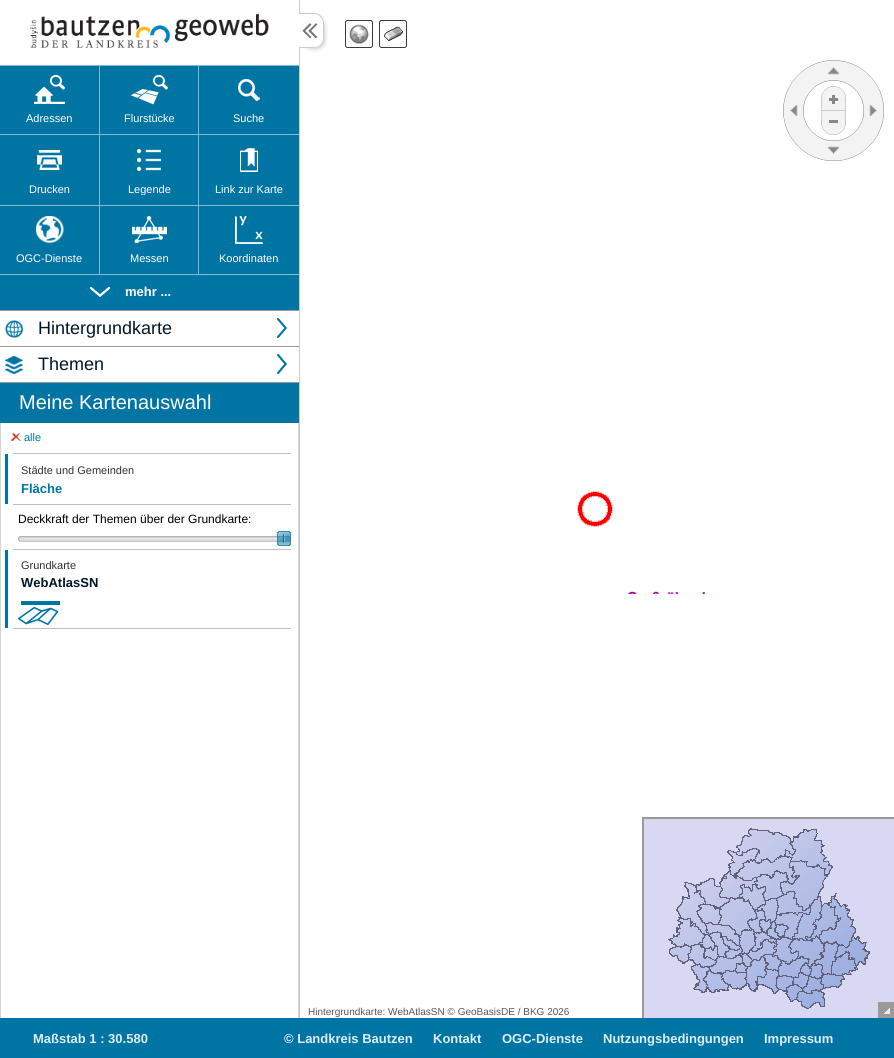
#include <cairo.h>
#include <math.h>
#include <stddef.h>


static void round_rect(cairo_t *cr, double x, double y, double w, double h, double r) {
    cairo_new_sub_path(cr);
    cairo_arc(cr, x + w - r, y + h - r, r, 0, M_PI / 2);
    cairo_arc(cr, x + r, y + h - r, r, M_PI / 2, M_PI);
    cairo_arc(cr, x + r, y + r, r, M_PI, 1.5 * M_PI);
    cairo_arc(cr, x + w - r, y + r, r, 1.5 * M_PI, 2 * M_PI);
    cairo_close_path(cr);
}

static void shadow(cairo_t *cr, double x, double y, double w, double h, double r, double blur, double alpha) {
    cairo_push_group_with_content(cr, CAIRO_CONTENT_ALPHA);
    cairo_set_operator(cr, CAIRO_OPERATOR_SOURCE);
    for (int i = 15; i >= -15 && fmin(w, h) + blur * i / 3 > 0; i -= 2) {
        double e = blur * i / 6;
        cairo_set_source_rgba(cr, 0, 0, 0, alpha * erfc((i - 1) / 8.5) / 2);
        round_rect(cr, x - e, y - e, w + 2 * e, h + 2 * e, fmax(0, fmin(r + e + blur * .6, fmin(w, h) / 2 + e)));
        cairo_fill(cr);
    }
    cairo_pattern_t *soft = cairo_pop_group(cr);
    cairo_mask(cr, soft);
    cairo_pattern_destroy(soft);
}

static void picture(cairo_t *cr, const char *path, double x, double y, double w, double h) {
    cairo_surface_t *image = cairo_image_surface_create_from_png(path);
    cairo_save(cr);
    cairo_set_source_surface(cr, image, x, y);
    cairo_rectangle(cr, x, y, w, h);
    cairo_fill(cr);
    cairo_restore(cr);
    cairo_surface_destroy(image);
}

int main(void) {
    cairo_surface_t *surface = cairo_image_surface_create(CAIRO_FORMAT_RGB24, 894, 1058);
    cairo_t *cr = cairo_create(surface);
    cairo_font_options_t *options = cairo_font_options_create();
    cairo_font_options_set_hint_metrics(options, CAIRO_HINT_METRICS_OFF);
    cairo_font_options_set_hint_style(options, CAIRO_HINT_STYLE_NONE);
    cairo_set_font_options(cr, options);
    cairo_set_miter_limit(cr, 4);
    cairo_set_source_rgb(cr, 1, 1, 1);
    cairo_paint(cr);
    cairo_set_source_rgb(cr, 0.8, 0.8, 0.8);
    cairo_rectangle(cr, 299, 0, 1, 1018);
    cairo_fill(cr);
    picture(cr, "img2.png", 30, 13, 239, 35);
    cairo_set_source_rgb(cr, 0, 0.459, 0.643);
    cairo_rectangle(cr, 0, 66, 99, 68);
    cairo_fill(cr);
    cairo_set_source_rgb(cr, 0.502, 0.729, 0.824);
    cairo_rectangle(cr, 0, 65, 99, 1);
    cairo_fill(cr);
    cairo_rectangle(cr, 0, 134, 99, 1);
    cairo_fill(cr);
    picture(cr, "img3.png", 34, 75, 31, 29);
    cairo_select_font_face(cr, "Liberation Sans", CAIRO_FONT_SLANT_NORMAL, CAIRO_FONT_WEIGHT_NORMAL);
    cairo_set_font_size(cr, 11);
    cairo_set_source_rgb(cr, 1, 1, 1);
    cairo_move_to(cr, 26, 122);
    cairo_show_text(cr, "Adressen");
    cairo_set_source_rgb(cr, 0, 0.459, 0.643);
    cairo_rectangle(cr, 99.5, 65.5, 99, 69);
    cairo_fill_preserve(cr);
    cairo_set_source_rgb(cr, 0.502, 0.729, 0.824);
    cairo_set_line_width(cr, 1);
    cairo_stroke(cr);
    picture(cr, "img4.png", 131, 75, 37, 30);
    cairo_set_source_rgb(cr, 1, 1, 1);
    cairo_move_to(cr, 124, 122);
    cairo_show_text(cr, "Flurstücke");
    cairo_set_source_rgb(cr, 0, 0.459, 0.643);
    cairo_rectangle(cr, 199, 66, 100, 68);
    cairo_fill(cr);
    cairo_set_source_rgb(cr, 0.502, 0.729, 0.824);
    cairo_rectangle(cr, 199, 65, 100, 1);
    cairo_fill(cr);
    cairo_rectangle(cr, 199, 134, 100, 1);
    cairo_fill(cr);
    picture(cr, "img5.png", 238, 79, 22, 22);
    cairo_set_source_rgb(cr, 1, 1, 1);
    cairo_move_to(cr, 233, 122);
    cairo_show_text(cr, "Suche");
    cairo_set_source_rgb(cr, 0, 0.459, 0.643);
    cairo_rectangle(cr, 0, 135, 99, 70);
    cairo_fill(cr);
    picture(cr, "img6.png", 37, 150, 25, 20);
    cairo_set_source_rgb(cr, 1, 1, 1);
    cairo_move_to(cr, 29, 193);
    cairo_show_text(cr, "Drucken");
    cairo_set_source_rgb(cr, 0, 0.459, 0.643);
    cairo_rectangle(cr, 100, 135, 98, 70);
    cairo_fill(cr);
    cairo_set_source_rgb(cr, 0.502, 0.729, 0.824);
    cairo_rectangle(cr, 198, 135, 1, 70);
    cairo_fill(cr);
    cairo_rectangle(cr, 99, 135, 1, 70);
    cairo_fill(cr);
    picture(cr, "img7.png", 137, 149, 24, 22);
    cairo_save(cr);
    cairo_rectangle(cr, 100, 183, 98, 12);
    cairo_clip(cr);
    cairo_set_source_rgb(cr, 1, 1, 1);
    cairo_move_to(cr, 128, 193);
    cairo_show_text(cr, "Legende");
    cairo_restore(cr);
    cairo_set_source_rgb(cr, 0, 0.459, 0.643);
    cairo_rectangle(cr, 199, 135, 100, 70);
    cairo_fill(cr);
    picture(cr, "img8.png", 240, 148, 18, 24);
    cairo_set_source_rgb(cr, 1, 1, 1);
    cairo_move_to(cr, 215, 193);
    cairo_show_text(cr, "Link zur Karte");
    cairo_set_source_rgb(cr, 0, 0.459, 0.643);
    cairo_rectangle(cr, 0, 206, 99, 68);
    cairo_fill(cr);
    cairo_set_source_rgb(cr, 0.502, 0.729, 0.824);
    cairo_rectangle(cr, 0, 205, 99, 1);
    cairo_fill(cr);
    cairo_rectangle(cr, 0, 274, 99, 1);
    cairo_fill(cr);
    picture(cr, "img9.png", 36, 216, 28, 27);
    cairo_set_source_rgb(cr, 1, 1, 1);
    cairo_move_to(cr, 16, 262);
    cairo_show_text(cr, "OGC-Dienste");
    cairo_set_source_rgb(cr, 0, 0.459, 0.643);
    cairo_rectangle(cr, 99.5, 205.5, 99, 69);
    cairo_fill_preserve(cr);
    cairo_set_source_rgb(cr, 0.502, 0.729, 0.824);
    cairo_stroke(cr);
    picture(cr, "img10.png", 132, 216, 35, 27);
    cairo_set_source_rgb(cr, 1, 1, 1);
    cairo_move_to(cr, 130, 262);
    cairo_show_text(cr, "Messen");
    cairo_set_source_rgb(cr, 0, 0.459, 0.643);
    cairo_rectangle(cr, 199, 206, 100, 68);
    cairo_fill(cr);
    cairo_set_source_rgb(cr, 0.502, 0.729, 0.824);
    cairo_rectangle(cr, 199, 205, 100, 1);
    cairo_fill(cr);
    cairo_rectangle(cr, 199, 274, 100, 1);
    cairo_fill(cr);
    picture(cr, "img11.png", 235, 216, 28, 28);
    cairo_set_source_rgb(cr, 1, 1, 1);
    cairo_move_to(cr, 219, 262);
    cairo_show_text(cr, "Koordinaten");
    cairo_set_source_rgb(cr, 0.6, 0.6, 0.6);
    cairo_rectangle(cr, 0, 310, 299, 1);
    cairo_fill(cr);
    cairo_set_source_rgb(cr, 0, 0.459, 0.643);
    cairo_rectangle(cr, 0, 275, 299, 35);
    cairo_fill(cr);
    picture(cr, "img12.png", 90, 287, 20, 10);
    cairo_select_font_face(cr, "Liberation Sans", CAIRO_FONT_SLANT_NORMAL, CAIRO_FONT_WEIGHT_BOLD);
    cairo_set_font_size(cr, 13);
    cairo_set_source_rgb(cr, 1, 1, 1);
    cairo_move_to(cr, 125, 296);
    cairo_show_text(cr, "mehr ...");
    cairo_set_source_rgb(cr, 0.6, 0.6, 0.6);
    cairo_rectangle(cr, 0, 346, 299, 1);
    cairo_fill(cr);
    picture(cr, "img13.png", 5, 320, 18, 18);
    cairo_select_font_face(cr, "Liberation Sans", CAIRO_FONT_SLANT_NORMAL, CAIRO_FONT_WEIGHT_NORMAL);
    cairo_set_font_size(cr, 18);
    cairo_set_source_rgb(cr, 0, 0.09, 0.161);
    cairo_move_to(cr, 38, 334);
    cairo_show_text(cr, "Hintergrundkarte");
    cairo_set_source_rgb(cr, 0.6, 0.6, 0.6);
    cairo_rectangle(cr, 0, 382, 299, 1);
    cairo_fill(cr);
    picture(cr, "img14.png", 5, 356, 18, 18);
    cairo_set_source_rgb(cr, 0, 0.09, 0.161);
    cairo_move_to(cr, 38, 370);
    cairo_show_text(cr, "Themen");
    cairo_set_source_rgb(cr, 0.827, 0.827, 0.827);
    cairo_rectangle(cr, 298, 421, 1, 597);
    cairo_fill(cr);
    cairo_rectangle(cr, 0, 421, 1, 597);
    cairo_fill(cr);
    picture(cr, "img15.png", 11, 433, 10, 8);
    cairo_set_font_size(cr, 11);
    cairo_set_source_rgb(cr, 0, 0.459, 0.643);
    cairo_move_to(cr, 24, 441);
    cairo_show_text(cr, "alle");
    cairo_set_source_rgb(cr, 0.753, 0.753, 0.753);
    cairo_rectangle(cr, 13, 453, 278, 1);
    cairo_fill(cr);
    cairo_rectangle(cr, 13, 504, 278, 1);
    cairo_fill(cr);
    cairo_set_source_rgb(cr, 0, 0.459, 0.643);
    cairo_rectangle(cr, 5, 454, 3, 50);
    cairo_fill(cr);
    cairo_set_source_rgb(cr, 0.2, 0.2, 0.2);
    cairo_move_to(cr, 21, 474);
    cairo_show_text(cr, "Städte und Gemeinden");
    cairo_select_font_face(cr, "Liberation Sans", CAIRO_FONT_SLANT_NORMAL, CAIRO_FONT_WEIGHT_BOLD);
    cairo_set_font_size(cr, 13);
    cairo_set_source_rgb(cr, 0, 0.459, 0.643);
    cairo_move_to(cr, 21, 493);
    cairo_show_text(cr, "Fläche");
    cairo_set_source_rgb(cr, 0.753, 0.753, 0.753);
    cairo_rectangle(cr, 13, 549, 278, 1);
    cairo_fill(cr);
    cairo_select_font_face(cr, "Liberation Sans", CAIRO_FONT_SLANT_NORMAL, CAIRO_FONT_WEIGHT_NORMAL);
    cairo_set_font_size(cr, 12);
    cairo_set_source_rgb(cr, 0, 0, 0);
    cairo_move_to(cr, 18, 523);
    cairo_show_text(cr, "Deckkraft der Themen über der Grundkarte:");
    picture(cr, "img16.png", 18, 536, 7, 6);
    picture(cr, "img17.png", 284, 536, 7, 6);
    picture(cr, "img18.png", 25, 536, 258, 6);
    picture(cr, "img19.png", 277, 531, 14, 15);
    cairo_set_source_rgb(cr, 0.753, 0.753, 0.753);
    cairo_rectangle(cr, 13, 628, 278, 1);
    cairo_fill(cr);
    cairo_set_source_rgb(cr, 0, 0.459, 0.643);
    cairo_rectangle(cr, 5, 550, 3, 78);
    cairo_fill(cr);
    cairo_set_font_size(cr, 11);
    cairo_set_source_rgb(cr, 0.2, 0.2, 0.2);
    cairo_move_to(cr, 21, 569);
    cairo_show_text(cr, "Grundkarte");
    cairo_select_font_face(cr, "Liberation Sans", CAIRO_FONT_SLANT_NORMAL, CAIRO_FONT_WEIGHT_BOLD);
    cairo_set_font_size(cr, 13);
    cairo_set_source_rgb(cr, 0, 0.09, 0.161);
    cairo_move_to(cr, 21, 587);
    cairo_show_text(cr, "WebAtlasSN");
    picture(cr, "img20.png", 18, 601, 42, 24);
    picture(cr, "img21.png", 577, 491, 36, 36);
    picture(cr, "img22.png", 627, 591, 79, 3);
    picture(cr, "img23.png", 345, 20, 28, 28);
    picture(cr, "img24.png", 379, 20, 28, 28);
    cairo_set_source_rgb(cr, 0.6, 0.6, 0.6);
    cairo_rectangle(cr, 642, 817, 252, 2);
    cairo_fill(cr);
    cairo_rectangle(cr, 642, 817, 2, 201);
    cairo_fill(cr);
    picture(cr, "img25.png", 668, 828, 202, 181);
    cairo_select_font_face(cr, "Liberation Sans", CAIRO_FONT_SLANT_NORMAL, CAIRO_FONT_WEIGHT_NORMAL);
    cairo_set_font_size(cr, 10);
    cairo_set_source_rgb(cr, 0.349, 0.349, 0.349);
    cairo_move_to(cr, 308, 1015);
    cairo_show_text(cr, "Hintergrundkarte: WebAtlasSN © GeoBasisDE / BKG 2026");
    cairo_save(cr);
    cairo_rectangle(cr, 644, 819, 250, 199);
    cairo_clip(cr);
    cairo_rectangle(cr, 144, 522, 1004, 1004);
    cairo_set_source_rgba(cr, 0.4, 0.4, 0.8, 0.25);
    cairo_set_line_width(cr, 1000);
    cairo_stroke(cr);
    cairo_restore(cr);
    cairo_set_source_rgb(cr, 0, 0, 0);
    shadow(cr, 304, 18, 21, 31, 8, 2, 0.2);
    cairo_set_source_rgb(cr, 1, 1, 1);
    cairo_new_path(cr);
    cairo_move_to(cr, 299, 13);
    cairo_line_to(cr, 314, 13);
    cairo_curve_to(cr, 319.5, 13, 324, 17.5, 324, 23);
    cairo_line_to(cr, 324, 38);
    cairo_curve_to(cr, 324, 43.5, 319.5, 48, 314, 48);
    cairo_line_to(cr, 299, 48);
    cairo_close_path(cr);
    cairo_fill(cr);
    picture(cr, "img1.png", 302, 23, 16, 16);
    cairo_set_source_rgb(cr, 0.8, 0.8, 0.8);
    cairo_set_fill_rule(cr, CAIRO_FILL_RULE_EVEN_ODD);
    cairo_new_path(cr);
    cairo_move_to(cr, 299, 13);
    cairo_line_to(cr, 314, 13);
    cairo_curve_to(cr, 319.5, 13, 324, 17.5, 324, 23);
    cairo_line_to(cr, 324, 38);
    cairo_curve_to(cr, 324, 43.5, 319.5, 48, 314, 48);
    cairo_line_to(cr, 299, 48);
    cairo_close_path(cr);
    cairo_move_to(cr, 299, 14);
    cairo_line_to(cr, 314, 14);
    cairo_curve_to(cr, 319, 14, 323, 18, 323, 23);
    cairo_line_to(cr, 323, 38);
    cairo_curve_to(cr, 323, 43, 319, 47, 314, 47);
    cairo_line_to(cr, 299, 47);
    cairo_close_path(cr);
    cairo_fill(cr);
    cairo_set_source_rgb(cr, 0, 0.459, 0.643);
    cairo_rectangle(cr, 0, 383, 299, 40);
    cairo_fill(cr);
    cairo_set_font_size(cr, 20);
    cairo_set_source_rgb(cr, 1, 1, 1);
    cairo_move_to(cr, 19, 409);
    cairo_show_text(cr, "Meine Kartenauswahl");
    picture(cr, "img26.png", 878, 1002, 16, 16);
    picture(cr, "img27.png", 783, 60, 101, 101);
    picture(cr, "img28.png", 828, 67, 12, 8);
    picture(cr, "img29.png", 790, 105, 8, 12);
    picture(cr, "img30.png", 869, 105, 8, 12);
    picture(cr, "img31.png", 828, 146, 12, 8);
    picture(cr, "img32.png", 821, 86, 25, 49);
    picture(cr, "img33.png", 829, 95, 9, 9);
    cairo_set_source_rgb(cr, 0.533, 0.533, 0.533);
    cairo_rectangle(cr, 829, 120, 9, 3);
    cairo_fill(cr);
    cairo_set_source_rgb(cr, 0, 0.459, 0.643);
    cairo_rectangle(cr, 0, 1018, 894, 40);
    cairo_fill(cr);
    cairo_select_font_face(cr, "Liberation Sans", CAIRO_FONT_SLANT_NORMAL, CAIRO_FONT_WEIGHT_BOLD);
    cairo_set_font_size(cr, 13);
    cairo_set_source_rgb(cr, 0.871, 0.929, 0.953);
    cairo_move_to(cr, 33, 1043);
    cairo_show_text(cr, "Maßstab 1 : 30.580");
    cairo_move_to(cr, 284, 1043);
    cairo_show_text(cr, "© Landkreis Bautzen");
    cairo_move_to(cr, 433, 1043);
    cairo_show_text(cr, "Kontakt");
    cairo_move_to(cr, 502, 1043);
    cairo_show_text(cr, "OGC-Dienste");
    cairo_move_to(cr, 603, 1043);
    cairo_show_text(cr, "Nutzungsbedingungen");
    cairo_move_to(cr, 764, 1043);
    cairo_show_text(cr, "Impressum");
    picture(cr, "img34.png", 277, 318, 10, 20);
    picture(cr, "img34.png", 277, 354, 10, 20);
    cairo_surface_write_to_png(surface, "page.png");
    cairo_font_options_destroy(options);
    cairo_destroy(cr);
    cairo_surface_destroy(surface);
    return 0;
}
